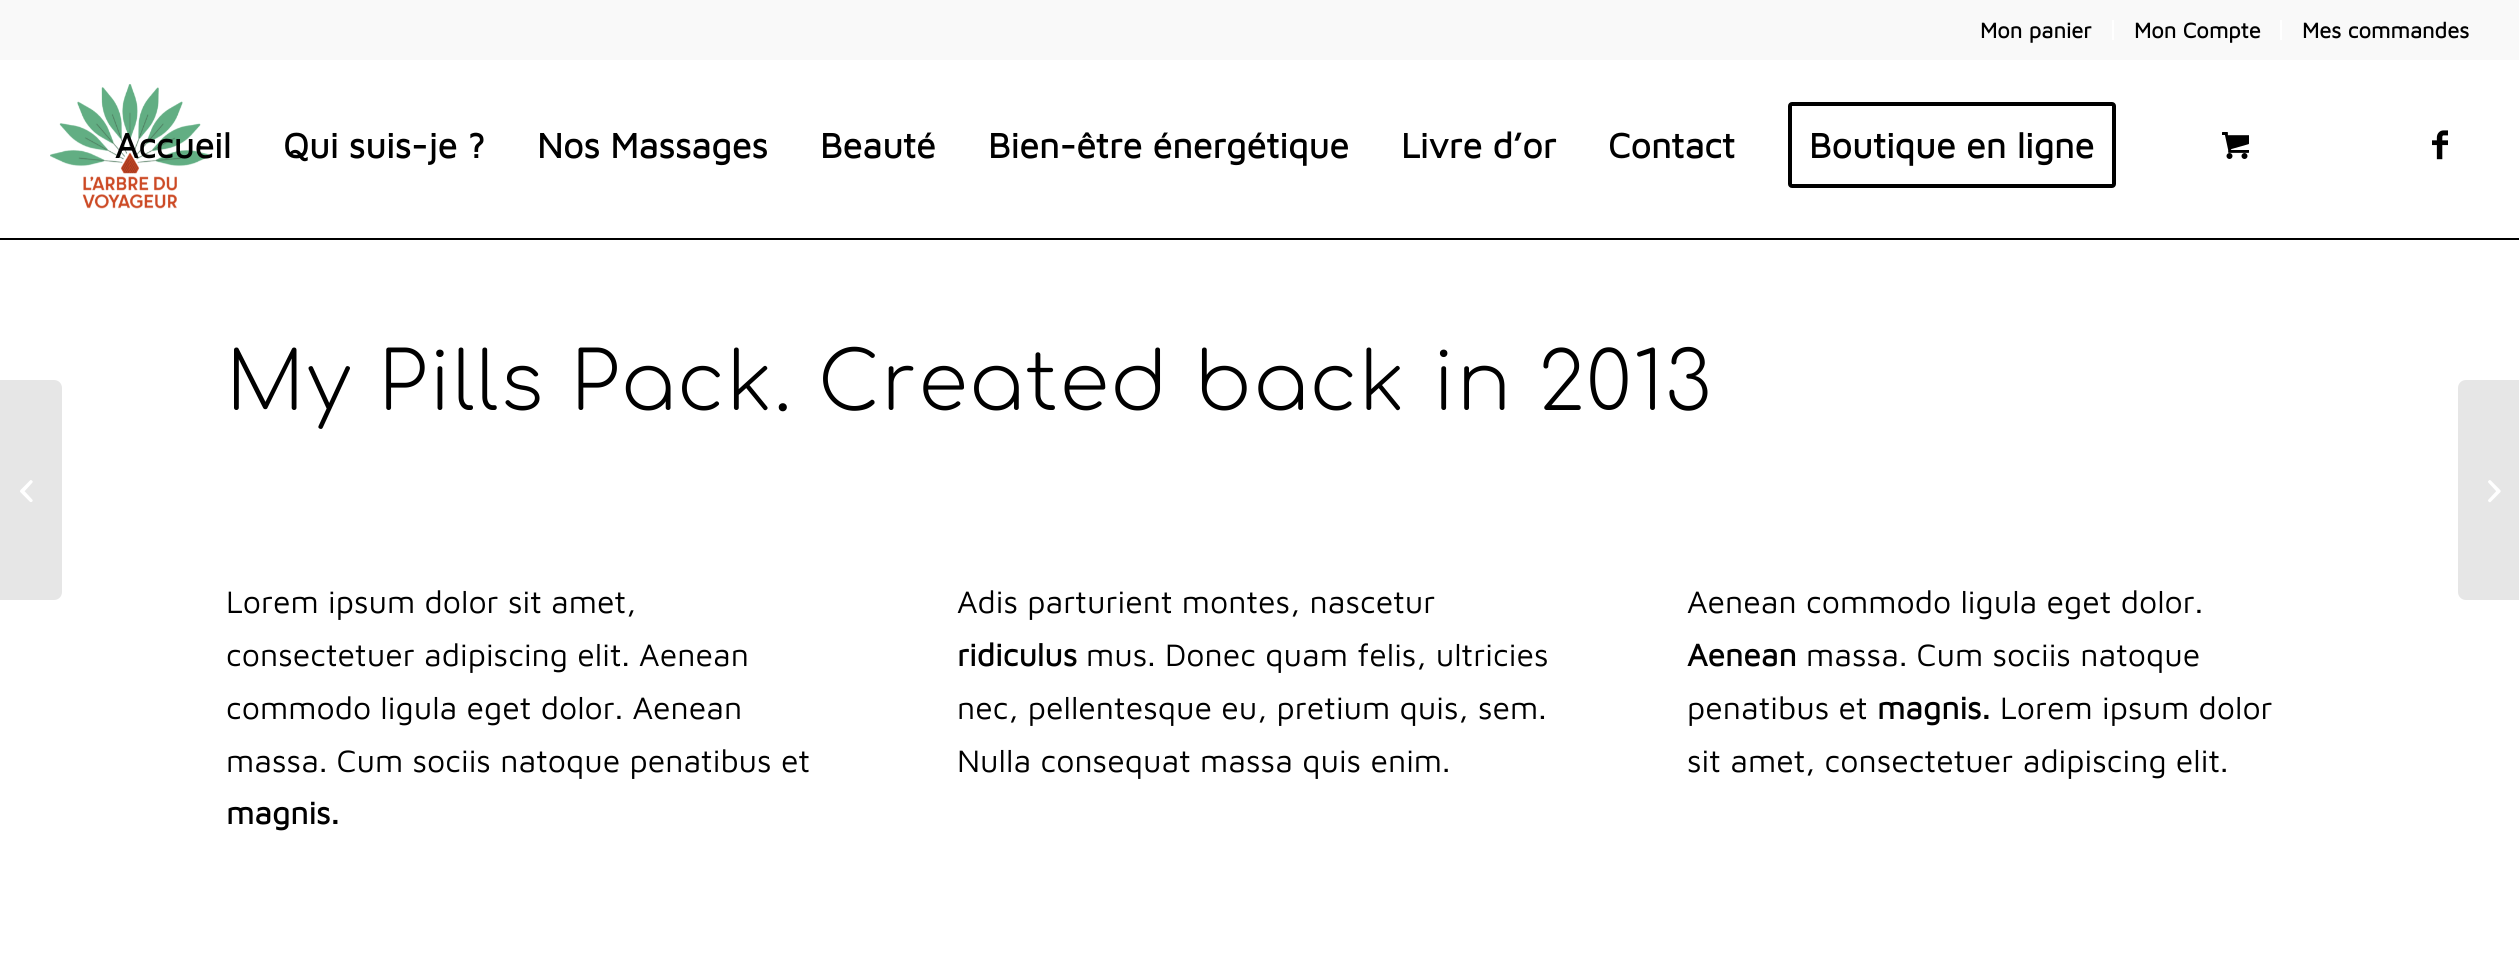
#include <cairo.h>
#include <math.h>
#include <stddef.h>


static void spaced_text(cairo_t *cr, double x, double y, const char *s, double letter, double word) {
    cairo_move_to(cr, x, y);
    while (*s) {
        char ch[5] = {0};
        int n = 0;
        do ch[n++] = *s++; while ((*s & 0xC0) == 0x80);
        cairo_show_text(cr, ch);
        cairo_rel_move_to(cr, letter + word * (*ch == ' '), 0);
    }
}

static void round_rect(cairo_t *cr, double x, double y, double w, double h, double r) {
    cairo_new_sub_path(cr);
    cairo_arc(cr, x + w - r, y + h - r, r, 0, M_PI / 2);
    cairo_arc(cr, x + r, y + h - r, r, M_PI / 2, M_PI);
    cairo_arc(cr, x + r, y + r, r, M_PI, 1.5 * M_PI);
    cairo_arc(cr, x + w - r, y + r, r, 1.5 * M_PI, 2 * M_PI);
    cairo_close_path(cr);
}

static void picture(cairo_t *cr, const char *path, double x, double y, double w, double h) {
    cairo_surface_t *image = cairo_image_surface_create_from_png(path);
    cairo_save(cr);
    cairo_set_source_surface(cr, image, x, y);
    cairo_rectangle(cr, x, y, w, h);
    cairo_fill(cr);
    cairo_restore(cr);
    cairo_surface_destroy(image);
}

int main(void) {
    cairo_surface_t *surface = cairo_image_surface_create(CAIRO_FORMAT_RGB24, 2519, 979);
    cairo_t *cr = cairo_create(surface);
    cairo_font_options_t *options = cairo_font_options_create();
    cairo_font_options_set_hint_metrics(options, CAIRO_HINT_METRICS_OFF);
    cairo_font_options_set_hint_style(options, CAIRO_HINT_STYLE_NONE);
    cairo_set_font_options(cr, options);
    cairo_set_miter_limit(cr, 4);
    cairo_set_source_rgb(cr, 1, 1, 1);
    cairo_paint(cr);
    cairo_set_source_rgb(cr, 0.973, 0.973, 0.973);
    cairo_rectangle(cr, 0, 0, 2519, 60);
    cairo_fill(cr);
    cairo_set_source_rgb(cr, 1, 1, 1);
    cairo_rectangle(cr, 2112, 20, 2, 20);
    cairo_fill(cr);
    cairo_select_font_face(cr, "Maven Pro", CAIRO_FONT_SLANT_NORMAL, CAIRO_FONT_WEIGHT_BOLD);
    cairo_set_font_size(cr, 22);
    cairo_set_source_rgb(cr, 0, 0, 0);
    cairo_move_to(cr, 1980, 38);
    cairo_show_text(cr, "Mon panier");
    cairo_set_source_rgb(cr, 1, 1, 1);
    cairo_rectangle(cr, 2280, 20, 2, 20);
    cairo_fill(cr);
    cairo_set_source_rgb(cr, 0, 0, 0);
    cairo_move_to(cr, 2134, 38);
    cairo_show_text(cr, "Mon Compte");
    cairo_move_to(cr, 2302, 38);
    cairo_show_text(cr, "Mes commandes");
    picture(cr, "img1.png", 50, 84, 160, 125);
    cairo_set_font_size(cr, 36);
    cairo_move_to(cr, 115, 158);
    cairo_show_text(cr, "Accueil");
    cairo_move_to(cr, 283, 158);
    cairo_show_text(cr, "Qui suis-je ?");
    cairo_move_to(cr, 537, 158);
    cairo_show_text(cr, "Nos Massages");
    cairo_move_to(cr, 820, 158);
    cairo_show_text(cr, "Beauté");
    cairo_move_to(cr, 988, 158);
    cairo_show_text(cr, "Bien-être énergétique");
    cairo_move_to(cr, 1401, 158);
    cairo_show_text(cr, "Livre d’or");
    cairo_move_to(cr, 1608, 158);
    cairo_show_text(cr, "Contact");
    round_rect(cr, 1790, 104, 324, 82, 2);
    cairo_set_line_width(cr, 4);
    cairo_stroke(cr);
    cairo_move_to(cr, 1809, 158);
    cairo_show_text(cr, "Boutique en ligne");
    picture(cr, "img2.png", 2222, 132, 27, 27);
    picture(cr, "img3.png", 2432, 130, 16, 30);
    cairo_set_source_rgb(cr, 0.902, 0.902, 0.902);
    cairo_new_path(cr);
    cairo_move_to(cr, 0, 380);
    cairo_line_to(cr, 54, 380);
    cairo_curve_to(cr, 58.5, 380, 62, 383.5, 62, 388);
    cairo_line_to(cr, 62, 592);
    cairo_curve_to(cr, 62, 596.5, 58.5, 600, 54, 600);
    cairo_line_to(cr, 0, 600);
    cairo_close_path(cr);
    cairo_fill(cr);
    picture(cr, "img4.png", 20, 480, 13, 22);
    cairo_set_source_rgb(cr, 0, 0, 0);
    cairo_rectangle(cr, 0, 238, 2519, 2);
    cairo_fill(cr);
    cairo_select_font_face(cr, "Comfortaa Light", CAIRO_FONT_SLANT_NORMAL, CAIRO_FONT_WEIGHT_NORMAL);
    cairo_set_font_size(cr, 80);
    spaced_text(cr, 226, 410, "My Pills Pack. Created back in 2013", 2, 0);
    cairo_select_font_face(cr, "Maven Pro", CAIRO_FONT_SLANT_NORMAL, CAIRO_FONT_WEIGHT_NORMAL);
    cairo_set_font_size(cr, 32);
    cairo_move_to(cr, 226, 613);
    cairo_show_text(cr, "Lorem ipsum dolor sit amet,");
    cairo_move_to(cr, 226, 666);
    cairo_show_text(cr, "consectetuer adipiscing elit. Aenean");
    cairo_move_to(cr, 226, 719);
    cairo_show_text(cr, "commodo ligula eget dolor. Aenean");
    cairo_move_to(cr, 226, 772);
    cairo_show_text(cr, "massa. Cum sociis natoque penatibus et");
    cairo_select_font_face(cr, "Maven Pro", CAIRO_FONT_SLANT_NORMAL, CAIRO_FONT_WEIGHT_BOLD);
    cairo_move_to(cr, 226, 824);
    cairo_show_text(cr, "magnis.");
    cairo_select_font_face(cr, "Maven Pro", CAIRO_FONT_SLANT_NORMAL, CAIRO_FONT_WEIGHT_NORMAL);
    cairo_move_to(cr, 957, 613);
    cairo_show_text(cr, "Adis parturient montes, nascetur");
    cairo_select_font_face(cr, "Maven Pro", CAIRO_FONT_SLANT_NORMAL, CAIRO_FONT_WEIGHT_BOLD);
    cairo_move_to(cr, 957, 666);
    cairo_show_text(cr, "ridiculus");
    cairo_select_font_face(cr, "Maven Pro", CAIRO_FONT_SLANT_NORMAL, CAIRO_FONT_WEIGHT_NORMAL);
    cairo_move_to(cr, 1086, 666);
    cairo_show_text(cr, "mus. Donec quam felis, ultricies");
    cairo_move_to(cr, 957, 719);
    cairo_show_text(cr, "nec, pellentesque eu, pretium quis, sem.");
    cairo_move_to(cr, 957, 772);
    cairo_show_text(cr, "Nulla consequat massa quis enim.");
    cairo_move_to(cr, 1687, 613);
    cairo_show_text(cr, "Aenean commodo ligula eget dolor.");
    cairo_select_font_face(cr, "Maven Pro", CAIRO_FONT_SLANT_NORMAL, CAIRO_FONT_WEIGHT_BOLD);
    cairo_move_to(cr, 1687, 666);
    cairo_show_text(cr, "Aenean");
    cairo_select_font_face(cr, "Maven Pro", CAIRO_FONT_SLANT_NORMAL, CAIRO_FONT_WEIGHT_NORMAL);
    cairo_move_to(cr, 1806, 666);
    cairo_show_text(cr, "massa. Cum sociis natoque");
    cairo_move_to(cr, 1687, 719);
    cairo_show_text(cr, "penatibus et");
    cairo_select_font_face(cr, "Maven Pro", CAIRO_FONT_SLANT_NORMAL, CAIRO_FONT_WEIGHT_BOLD);
    cairo_move_to(cr, 1877, 719);
    cairo_show_text(cr, "magnis.");
    cairo_select_font_face(cr, "Maven Pro", CAIRO_FONT_SLANT_NORMAL, CAIRO_FONT_WEIGHT_NORMAL);
    cairo_move_to(cr, 2000, 719);
    cairo_show_text(cr, "Lorem ipsum dolor");
    cairo_move_to(cr, 1687, 772);
    cairo_show_text(cr, "sit amet, consectetuer adipiscing elit.");
    cairo_set_source_rgb(cr, 0.902, 0.902, 0.902);
    cairo_new_path(cr);
    cairo_move_to(cr, 2466, 380);
    cairo_line_to(cr, 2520, 380);
    cairo_line_to(cr, 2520, 600);
    cairo_line_to(cr, 2466, 600);
    cairo_curve_to(cr, 2461.5, 600, 2458, 596.5, 2458, 592);
    cairo_line_to(cr, 2458, 388);
    cairo_curve_to(cr, 2458, 383.5, 2461.5, 380, 2466, 380);
    cairo_close_path(cr);
    cairo_fill(cr);
    picture(cr, "img5.png", 2488, 480, 13, 23);
    cairo_surface_write_to_png(surface, "page.png");
    cairo_font_options_destroy(options);
    cairo_destroy(cr);
    cairo_surface_destroy(surface);
    return 0;
}
